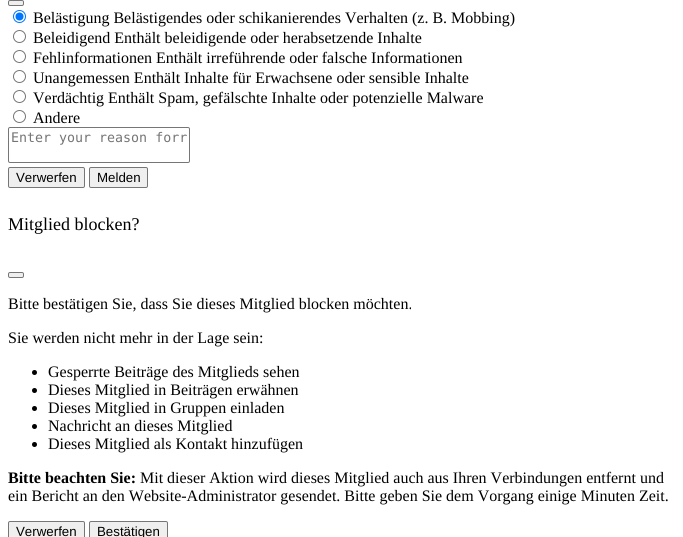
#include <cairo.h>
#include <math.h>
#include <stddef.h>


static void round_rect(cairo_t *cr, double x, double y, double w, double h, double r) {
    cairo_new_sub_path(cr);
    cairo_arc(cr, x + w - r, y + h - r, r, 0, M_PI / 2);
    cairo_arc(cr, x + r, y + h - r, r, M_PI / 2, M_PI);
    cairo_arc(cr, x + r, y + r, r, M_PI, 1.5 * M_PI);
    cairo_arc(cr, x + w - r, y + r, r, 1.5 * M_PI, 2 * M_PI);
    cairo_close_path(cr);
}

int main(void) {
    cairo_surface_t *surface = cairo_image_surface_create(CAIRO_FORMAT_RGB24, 683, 537);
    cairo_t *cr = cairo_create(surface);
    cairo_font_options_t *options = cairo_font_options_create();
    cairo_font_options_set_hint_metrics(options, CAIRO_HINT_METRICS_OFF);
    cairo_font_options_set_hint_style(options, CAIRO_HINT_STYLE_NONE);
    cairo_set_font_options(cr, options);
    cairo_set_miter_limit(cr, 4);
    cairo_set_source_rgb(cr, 1, 1, 1);
    cairo_paint(cr);
    cairo_set_source_rgb(cr, 0.937, 0.937, 0.937);
    round_rect(cr, 8.5, 0.5, 15, 5, 1.5);
    cairo_fill_preserve(cr);
    cairo_set_source_rgb(cr, 0.463, 0.463, 0.463);
    cairo_set_line_width(cr, 1);
    cairo_stroke(cr);
    cairo_arc(cr, 19.5, 16.5, 6, 0, 2 * M_PI);
    cairo_set_source_rgb(cr, 0, 0.459, 1);
    cairo_stroke(cr);
    cairo_arc(cr, 19.5, 16.5, 4, 0, 2 * M_PI);
    cairo_fill(cr);
    cairo_select_font_face(cr, "Liberation Serif", CAIRO_FONT_SLANT_NORMAL, CAIRO_FONT_WEIGHT_NORMAL);
    cairo_set_font_size(cr, 16);
    cairo_set_source_rgb(cr, 0, 0, 0);
    cairo_move_to(cr, 33, 23);
    cairo_show_text(cr, "Belästigung Belästigendes oder schikanierendes Verhalten (z. B. Mobbing)");
    cairo_new_path(cr);
    cairo_arc(cr, 19.5, 36.5, 6, 0, 2 * M_PI);
    cairo_set_source_rgb(cr, 0.463, 0.463, 0.463);
    cairo_stroke(cr);
    cairo_set_source_rgb(cr, 0, 0, 0);
    cairo_move_to(cr, 33, 43);
    cairo_show_text(cr, "Beleidigend Enthält beleidigende oder herabsetzende Inhalte");
    cairo_new_path(cr);
    cairo_arc(cr, 19.5, 56.5, 6, 0, 2 * M_PI);
    cairo_set_source_rgb(cr, 0.463, 0.463, 0.463);
    cairo_stroke(cr);
    cairo_set_source_rgb(cr, 0, 0, 0);
    cairo_move_to(cr, 33, 63);
    cairo_show_text(cr, "Fehlinformationen Enthält irreführende oder falsche Informationen");
    cairo_new_path(cr);
    cairo_arc(cr, 19.5, 76.5, 6, 0, 2 * M_PI);
    cairo_set_source_rgb(cr, 0.463, 0.463, 0.463);
    cairo_stroke(cr);
    cairo_set_source_rgb(cr, 0, 0, 0);
    cairo_move_to(cr, 33, 83);
    cairo_show_text(cr, "Unangemessen Enthält Inhalte für Erwachsene oder sensible Inhalte");
    cairo_new_path(cr);
    cairo_arc(cr, 19.5, 96.5, 6, 0, 2 * M_PI);
    cairo_set_source_rgb(cr, 0.463, 0.463, 0.463);
    cairo_stroke(cr);
    cairo_set_source_rgb(cr, 0, 0, 0);
    cairo_move_to(cr, 33, 103);
    cairo_show_text(cr, "Verdächtig Enthält Spam, gefälschte Inhalte oder potenzielle Malware");
    cairo_new_path(cr);
    cairo_arc(cr, 19.5, 116.5, 6, 0, 2 * M_PI);
    cairo_set_source_rgb(cr, 0.463, 0.463, 0.463);
    cairo_stroke(cr);
    cairo_set_source_rgb(cr, 0, 0, 0);
    cairo_move_to(cr, 33, 123);
    cairo_show_text(cr, "Andere");
    round_rect(cr, 8.5, 127.5, 181, 35, 1.5);
    cairo_set_source_rgb(cr, 0.463, 0.463, 0.463);
    cairo_stroke(cr);
    cairo_select_font_face(cr, "DejaVu Sans Mono", CAIRO_FONT_SLANT_NORMAL, CAIRO_FONT_WEIGHT_NORMAL);
    cairo_set_font_size(cr, 13.3);
    cairo_set_source_rgb(cr, 0.459, 0.459, 0.459);
    cairo_move_to(cr, 11, 142);
    cairo_show_text(cr, "Enter your reason forr");
    cairo_set_source_rgb(cr, 0.937, 0.937, 0.937);
    round_rect(cr, 8.5, 167.5, 76, 20, 1.5);
    cairo_fill_preserve(cr);
    cairo_set_source_rgb(cr, 0.463, 0.463, 0.463);
    cairo_stroke(cr);
    cairo_select_font_face(cr, "Liberation Sans", CAIRO_FONT_SLANT_NORMAL, CAIRO_FONT_WEIGHT_NORMAL);
    cairo_set_source_rgb(cr, 0, 0, 0);
    cairo_move_to(cr, 16, 182);
    cairo_show_text(cr, "Verwerfen");
    cairo_set_source_rgb(cr, 0.937, 0.937, 0.937);
    round_rect(cr, 89.5, 167.5, 58, 20, 1.5);
    cairo_fill_preserve(cr);
    cairo_set_source_rgb(cr, 0.463, 0.463, 0.463);
    cairo_stroke(cr);
    cairo_set_source_rgb(cr, 0, 0, 0);
    cairo_move_to(cr, 97, 182);
    cairo_show_text(cr, "Melden");
    cairo_select_font_face(cr, "Liberation Serif", CAIRO_FONT_SLANT_NORMAL, CAIRO_FONT_WEIGHT_NORMAL);
    cairo_set_font_size(cr, 18);
    cairo_move_to(cr, 8, 230);
    cairo_show_text(cr, "Mitglied blocken?");
    cairo_set_source_rgb(cr, 0.937, 0.937, 0.937);
    round_rect(cr, 8.5, 272.5, 15, 5, 1.5);
    cairo_fill_preserve(cr);
    cairo_set_source_rgb(cr, 0.463, 0.463, 0.463);
    cairo_stroke(cr);
    cairo_set_font_size(cr, 16);
    cairo_set_source_rgb(cr, 0, 0, 0);
    cairo_move_to(cr, 8, 309);
    cairo_show_text(cr, "Bitte bestätigen Sie, dass Sie dieses Mitglied blocken möchten.");
    cairo_move_to(cr, 8, 343);
    cairo_show_text(cr, "Sie werden nicht mehr in der Lage sein:");
    cairo_new_path(cr);
    cairo_arc(cr, 34.5, 372.5, 2.5, 0, 2 * M_PI);
    cairo_fill(cr);
    cairo_move_to(cr, 48, 377);
    cairo_show_text(cr, "Gesperrte Beiträge des Mitglieds sehen");
    cairo_new_path(cr);
    cairo_arc(cr, 34.5, 390.5, 2.5, 0, 2 * M_PI);
    cairo_fill(cr);
    cairo_move_to(cr, 48, 395);
    cairo_show_text(cr, "Dieses Mitglied in Beiträgen erwähnen");
    cairo_new_path(cr);
    cairo_arc(cr, 34.5, 408.5, 2.5, 0, 2 * M_PI);
    cairo_fill(cr);
    cairo_move_to(cr, 48, 413);
    cairo_show_text(cr, "Dieses Mitglied in Gruppen einladen");
    cairo_new_path(cr);
    cairo_arc(cr, 34.5, 426.5, 2.5, 0, 2 * M_PI);
    cairo_fill(cr);
    cairo_move_to(cr, 48, 431);
    cairo_show_text(cr, "Nachricht an dieses Mitglied");
    cairo_new_path(cr);
    cairo_arc(cr, 34.5, 444.5, 2.5, 0, 2 * M_PI);
    cairo_fill(cr);
    cairo_move_to(cr, 48, 449);
    cairo_show_text(cr, "Dieses Mitglied als Kontakt hinzufügen");
    cairo_select_font_face(cr, "Liberation Serif", CAIRO_FONT_SLANT_NORMAL, CAIRO_FONT_WEIGHT_BOLD);
    cairo_move_to(cr, 8, 483);
    cairo_show_text(cr, "Bitte beachten Sie:");
    cairo_select_font_face(cr, "Liberation Serif", CAIRO_FONT_SLANT_NORMAL, CAIRO_FONT_WEIGHT_NORMAL);
    cairo_move_to(cr, 140, 483);
    cairo_show_text(cr, "Mit dieser Aktion wird dieses Mitglied auch aus Ihren Verbindungen entfernt und");
    cairo_move_to(cr, 8, 501);
    cairo_show_text(cr, "ein Bericht an den Website-Administrator gesendet. Bitte geben Sie dem Vorgang einige Minuten Zeit.");
    cairo_set_source_rgb(cr, 0.937, 0.937, 0.937);
    round_rect(cr, 8.5, 521.5, 76, 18, 1.5);
    cairo_fill_preserve(cr);
    cairo_set_source_rgb(cr, 0.463, 0.463, 0.463);
    cairo_stroke(cr);
    cairo_select_font_face(cr, "Liberation Sans", CAIRO_FONT_SLANT_NORMAL, CAIRO_FONT_WEIGHT_NORMAL);
    cairo_set_font_size(cr, 13.3);
    cairo_set_source_rgb(cr, 0, 0, 0);
    cairo_move_to(cr, 16, 536);
    cairo_show_text(cr, "Verwerfen");
    cairo_set_source_rgb(cr, 0.937, 0.937, 0.937);
    round_rect(cr, 89.5, 521.5, 78, 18, 1.5);
    cairo_fill_preserve(cr);
    cairo_set_source_rgb(cr, 0.463, 0.463, 0.463);
    cairo_stroke(cr);
    cairo_set_source_rgb(cr, 0, 0, 0);
    cairo_move_to(cr, 97, 536);
    cairo_show_text(cr, "Bestätigen");
    cairo_surface_write_to_png(surface, "page.png");
    cairo_font_options_destroy(options);
    cairo_destroy(cr);
    cairo_surface_destroy(surface);
    return 0;
}
